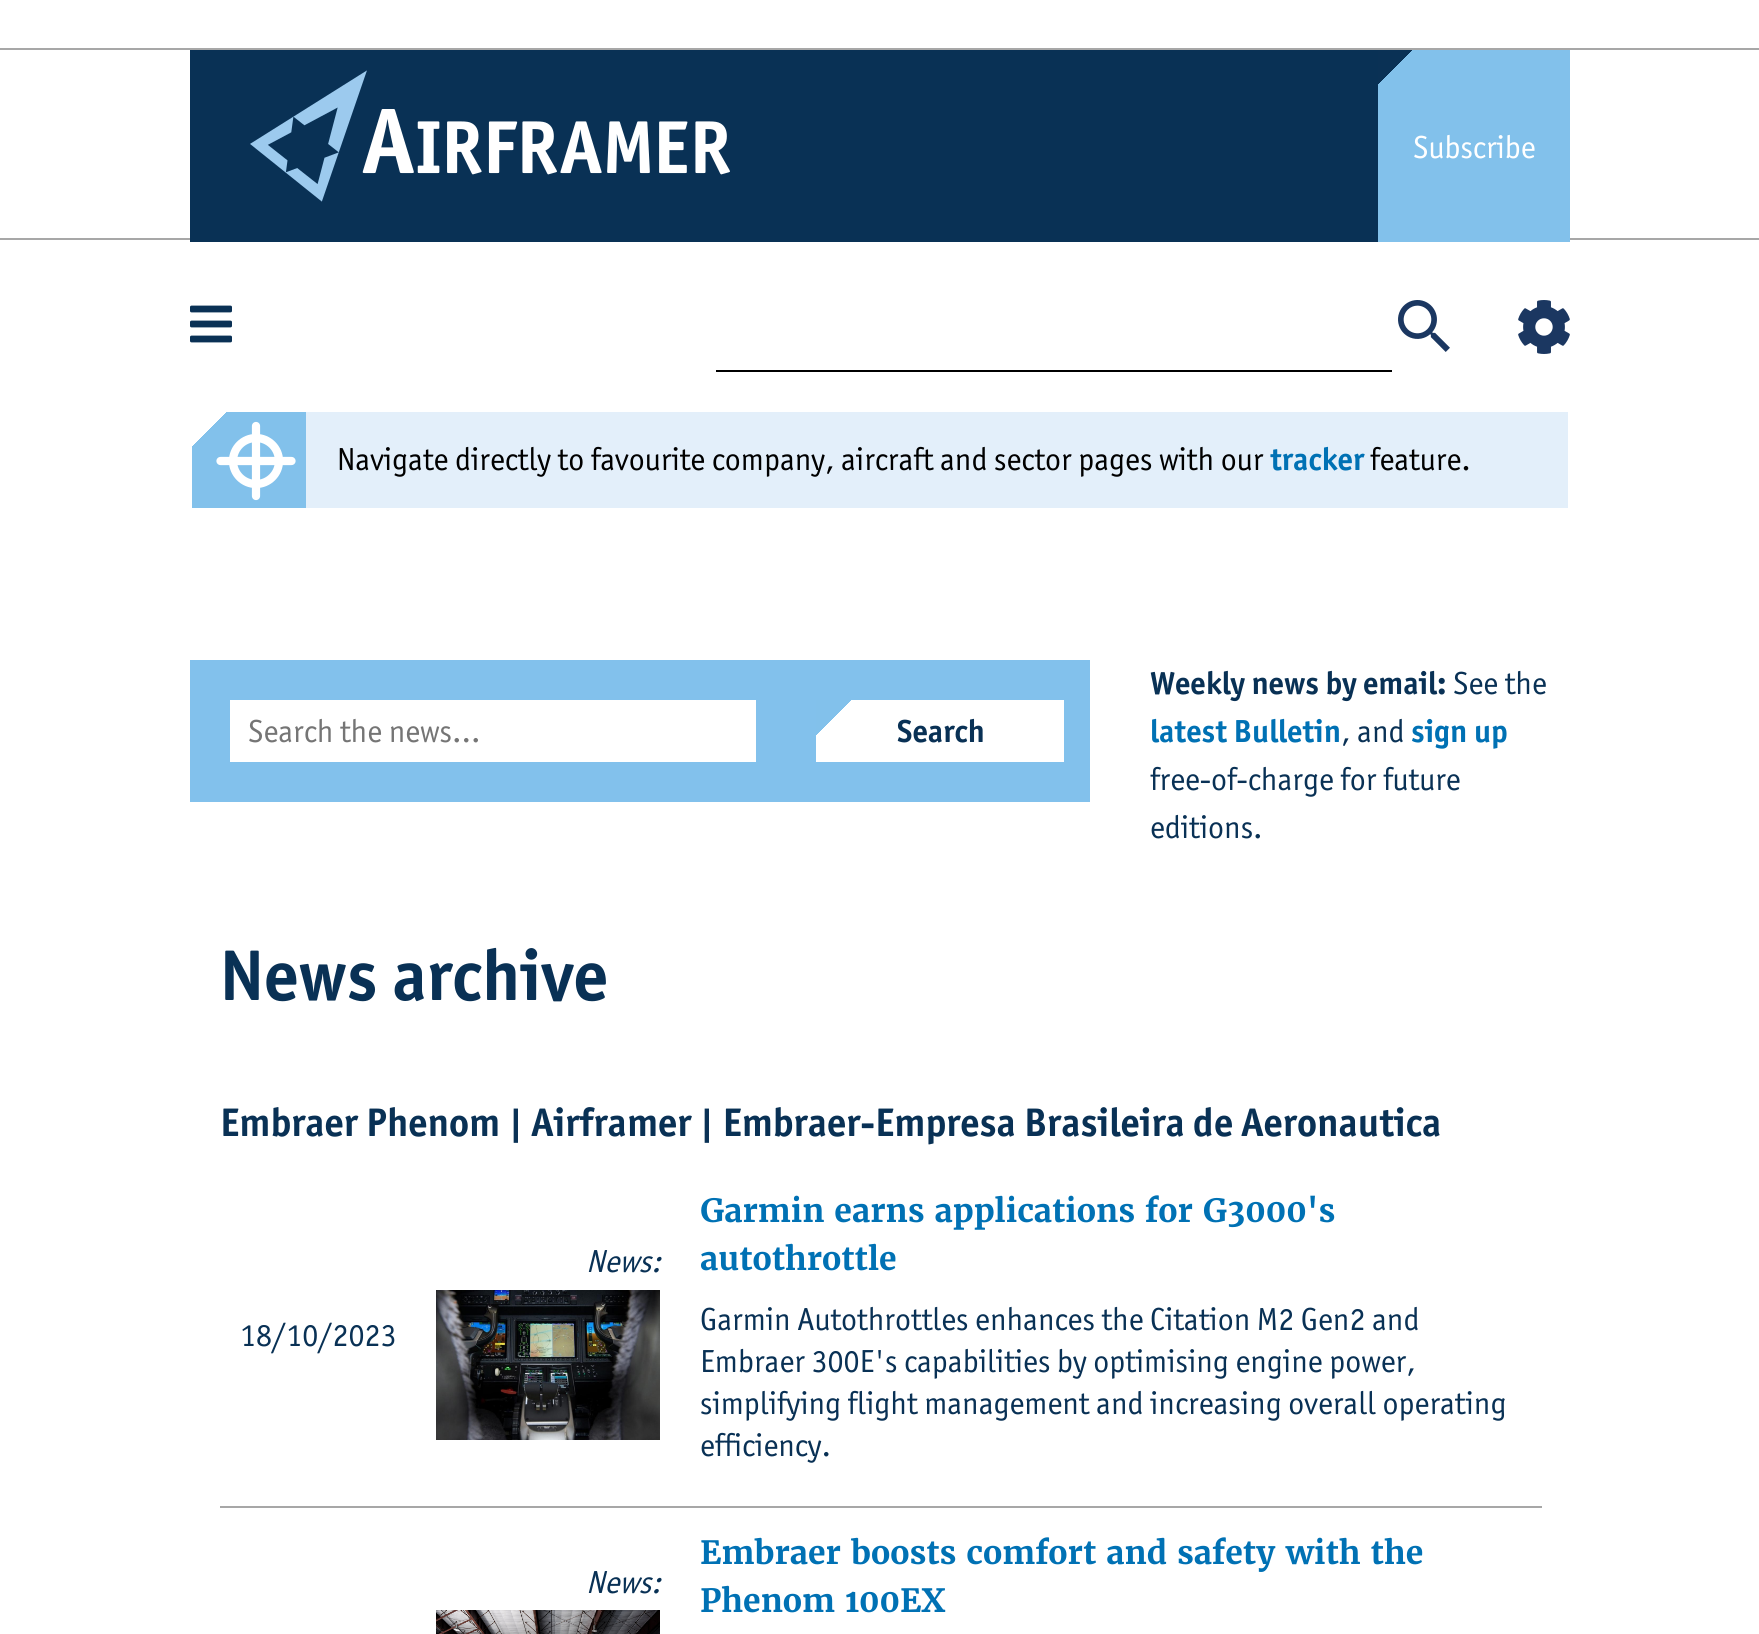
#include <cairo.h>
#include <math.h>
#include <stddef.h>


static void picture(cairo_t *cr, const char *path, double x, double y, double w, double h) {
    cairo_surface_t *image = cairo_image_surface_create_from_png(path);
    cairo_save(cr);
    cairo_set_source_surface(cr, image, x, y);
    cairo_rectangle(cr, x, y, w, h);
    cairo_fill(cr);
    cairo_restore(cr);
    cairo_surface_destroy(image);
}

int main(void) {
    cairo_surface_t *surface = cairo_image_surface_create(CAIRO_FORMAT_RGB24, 1759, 1634);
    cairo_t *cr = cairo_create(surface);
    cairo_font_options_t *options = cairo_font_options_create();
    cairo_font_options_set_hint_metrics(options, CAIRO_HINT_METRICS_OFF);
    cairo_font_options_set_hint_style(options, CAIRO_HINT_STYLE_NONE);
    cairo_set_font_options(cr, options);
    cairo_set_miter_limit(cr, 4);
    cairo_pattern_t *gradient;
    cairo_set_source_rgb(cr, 1, 1, 1);
    cairo_paint(cr);
    cairo_set_source_rgb(cr, 0.655, 0.655, 0.655);
    cairo_rectangle(cr, 0, 48, 1759, 2);
    cairo_fill(cr);
    cairo_rectangle(cr, 0, 238, 1759, 2);
    cairo_fill(cr);
    cairo_set_source_rgb(cr, 0.039, 0.192, 0.333);
    cairo_rectangle(cr, 190, 50, 1188, 192);
    cairo_fill(cr);
    picture(cr, "img1.png", 250, 70, 480, 132);
    gradient = cairo_pattern_create_linear(1378, 50, 1570, 242);
    cairo_pattern_add_color_stop_rgba(gradient, 0.09, 0.039, 0.192, 0.333, 1);
    cairo_pattern_add_color_stop_rgba(gradient, 0.09, 0.51, 0.757, 0.922, 1);
    cairo_set_source(cr, gradient);
    cairo_pattern_destroy(gradient);
    cairo_rectangle(cr, 1378, 50, 192, 192);
    cairo_fill(cr);
    cairo_select_font_face(cr, "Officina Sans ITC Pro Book", CAIRO_FONT_SLANT_NORMAL, CAIRO_FONT_WEIGHT_NORMAL);
    cairo_set_font_size(cr, 32);
    cairo_set_source_rgb(cr, 1, 1, 1);
    cairo_move_to(cr, 1413, 158);
    cairo_show_text(cr, "Subscribe");
    picture(cr, "img2.png", 190, 305, 42, 38);
    picture(cr, "img3.png", 1398, 300, 52, 52);
    cairo_set_source_rgb(cr, 0, 0, 0);
    cairo_rectangle(cr, 716, 370, 676, 2);
    cairo_fill(cr);
    picture(cr, "img4.png", 1518, 300, 52, 54);
    gradient = cairo_pattern_create_linear(197, 408, 302, 513);
    cairo_pattern_add_color_stop_rgba(gradient, 0.16, 1, 1, 1, 1);
    cairo_pattern_add_color_stop_rgba(gradient, 0.16, 0.51, 0.757, 0.922, 1);
    cairo_set_source(cr, gradient);
    cairo_pattern_destroy(gradient);
    cairo_rectangle(cr, 192, 412, 114, 96);
    cairo_fill(cr);
    cairo_arc(cr, 256, 461, 23, 0, 2 * M_PI);
    cairo_set_source_rgb(cr, 1, 1, 1);
    cairo_set_line_width(cr, 8.2);
    cairo_stroke(cr);
    cairo_new_path(cr);
    cairo_move_to(cr, 220.5, 461);
    cairo_line_to(cr, 291.5, 461);
    cairo_set_line_cap(cr, CAIRO_LINE_CAP_ROUND);
    cairo_stroke(cr);
    cairo_new_path(cr);
    cairo_move_to(cr, 256, 426);
    cairo_line_to(cr, 256, 496);
    cairo_stroke(cr);
    cairo_set_source_rgb(cr, 0.89, 0.937, 0.98);
    cairo_rectangle(cr, 306, 412, 1262, 96);
    cairo_fill(cr);
    cairo_set_source_rgb(cr, 0, 0, 0);
    cairo_move_to(cr, 337, 470);
    cairo_show_text(cr, "Navigate directly to favourite company, aircraft and sector pages with our");
    cairo_select_font_face(cr, "Officina Sans ITC Pro Book", CAIRO_FONT_SLANT_NORMAL, CAIRO_FONT_WEIGHT_BOLD);
    cairo_set_source_rgb(cr, 0, 0.443, 0.706);
    cairo_move_to(cr, 1270, 470);
    cairo_show_text(cr, "tracker");
    cairo_select_font_face(cr, "Officina Sans ITC Pro Book", CAIRO_FONT_SLANT_NORMAL, CAIRO_FONT_WEIGHT_NORMAL);
    cairo_set_source_rgb(cr, 0, 0, 0);
    cairo_move_to(cr, 1370, 470);
    cairo_show_text(cr, "feature.");
    cairo_set_source_rgb(cr, 0.51, 0.757, 0.922);
    cairo_rectangle(cr, 190, 660, 900, 142);
    cairo_fill(cr);
    cairo_set_source_rgb(cr, 1, 1, 1);
    cairo_rectangle(cr, 230, 700, 526, 62);
    cairo_fill(cr);
    cairo_set_source_rgb(cr, 0.459, 0.459, 0.459);
    cairo_move_to(cr, 248, 742);
    cairo_show_text(cr, "Search the news...");
    gradient = cairo_pattern_create_linear(863, 654, 1018, 809);
    cairo_pattern_add_color_stop_rgba(gradient, 0.11, 0.51, 0.757, 0.922, 1);
    cairo_pattern_add_color_stop_rgba(gradient, 0.11, 1, 1, 1, 1);
    cairo_set_source(cr, gradient);
    cairo_pattern_destroy(gradient);
    cairo_rectangle(cr, 816, 700, 248, 62);
    cairo_fill(cr);
    cairo_select_font_face(cr, "Officina Sans ITC Pro Book", CAIRO_FONT_SLANT_NORMAL, CAIRO_FONT_WEIGHT_BOLD);
    cairo_set_source_rgb(cr, 0.039, 0.192, 0.333);
    cairo_move_to(cr, 897, 742);
    cairo_show_text(cr, "Search");
    cairo_move_to(cr, 1150, 694);
    cairo_show_text(cr, "Weekly news by email:");
    cairo_select_font_face(cr, "Officina Sans ITC Pro Book", CAIRO_FONT_SLANT_NORMAL, CAIRO_FONT_WEIGHT_NORMAL);
    cairo_move_to(cr, 1453, 694);
    cairo_show_text(cr, "See the");
    cairo_select_font_face(cr, "Officina Sans ITC Pro Book", CAIRO_FONT_SLANT_NORMAL, CAIRO_FONT_WEIGHT_BOLD);
    cairo_set_source_rgb(cr, 0, 0.443, 0.706);
    cairo_move_to(cr, 1150, 742);
    cairo_show_text(cr, "latest Bulletin");
    cairo_select_font_face(cr, "Officina Sans ITC Pro Book", CAIRO_FONT_SLANT_NORMAL, CAIRO_FONT_WEIGHT_NORMAL);
    cairo_set_source_rgb(cr, 0.039, 0.192, 0.333);
    cairo_move_to(cr, 1341, 742);
    cairo_show_text(cr, ", and");
    cairo_select_font_face(cr, "Officina Sans ITC Pro Book", CAIRO_FONT_SLANT_NORMAL, CAIRO_FONT_WEIGHT_BOLD);
    cairo_set_source_rgb(cr, 0, 0.443, 0.706);
    cairo_move_to(cr, 1411, 742);
    cairo_show_text(cr, "sign up");
    cairo_select_font_face(cr, "Officina Sans ITC Pro Book", CAIRO_FONT_SLANT_NORMAL, CAIRO_FONT_WEIGHT_NORMAL);
    cairo_set_source_rgb(cr, 0.039, 0.192, 0.333);
    cairo_move_to(cr, 1150, 790);
    cairo_show_text(cr, "free-of-charge for future");
    cairo_move_to(cr, 1150, 838);
    cairo_show_text(cr, "editions.");
    cairo_select_font_face(cr, "Officina Sans ITC Pro Book", CAIRO_FONT_SLANT_NORMAL, CAIRO_FONT_WEIGHT_BOLD);
    cairo_set_font_size(cr, 72);
    cairo_move_to(cr, 220, 1000);
    cairo_show_text(cr, "News archive");
    cairo_set_font_size(cr, 40);
    cairo_move_to(cr, 220, 1136);
    cairo_show_text(cr, "Embraer Phenom | Airframer | Embraer-Empresa Brasileira de Aeronautica");
    cairo_set_source_rgb(cr, 0.655, 0.655, 0.655);
    cairo_rectangle(cr, 220, 1506, 1322, 2);
    cairo_fill(cr);
    cairo_select_font_face(cr, "Officina Sans ITC Pro Book", CAIRO_FONT_SLANT_ITALIC, CAIRO_FONT_WEIGHT_NORMAL);
    cairo_set_font_size(cr, 32);
    cairo_set_source_rgb(cr, 0.039, 0.192, 0.333);
    cairo_move_to(cr, 586, 1272);
    cairo_show_text(cr, "News:");
    picture(cr, "img5.png", 436, 1290, 224, 150);
    cairo_select_font_face(cr, "Merriweather", CAIRO_FONT_SLANT_NORMAL, CAIRO_FONT_WEIGHT_BOLD);
    cairo_set_source_rgb(cr, 0, 0.443, 0.706);
    cairo_move_to(cr, 700, 1222);
    cairo_show_text(cr, "Garmin earns applications for G3000's");
    cairo_move_to(cr, 700, 1270);
    cairo_show_text(cr, "autothrottle");
    cairo_select_font_face(cr, "Officina Sans ITC Pro Book", CAIRO_FONT_SLANT_NORMAL, CAIRO_FONT_WEIGHT_NORMAL);
    cairo_set_source_rgb(cr, 0.039, 0.192, 0.333);
    cairo_move_to(cr, 700, 1330);
    cairo_show_text(cr, "Garmin Autothrottles enhances the Citation M2 Gen2 and");
    cairo_move_to(cr, 700, 1372);
    cairo_show_text(cr, "Embraer 300E's capabilities by optimising engine power,");
    cairo_move_to(cr, 700, 1414);
    cairo_show_text(cr, "simplifying flight management and increasing overall operating");
    cairo_move_to(cr, 700, 1456);
    cairo_show_text(cr, "efficiency.");
    cairo_move_to(cr, 240, 1346);
    cairo_show_text(cr, "18/10/2023");
    cairo_select_font_face(cr, "Officina Sans ITC Pro Book", CAIRO_FONT_SLANT_ITALIC, CAIRO_FONT_WEIGHT_NORMAL);
    cairo_move_to(cr, 586, 1593);
    cairo_show_text(cr, "News:");
    picture(cr, "img6.png", 436, 1610, 224, 24);
    cairo_select_font_face(cr, "Merriweather", CAIRO_FONT_SLANT_NORMAL, CAIRO_FONT_WEIGHT_BOLD);
    cairo_set_source_rgb(cr, 0, 0.443, 0.706);
    cairo_move_to(cr, 700, 1564);
    cairo_show_text(cr, "Embraer boosts comfort and safety with the");
    cairo_move_to(cr, 700, 1612);
    cairo_show_text(cr, "Phenom 100EX");
    cairo_surface_write_to_png(surface, "page.png");
    cairo_font_options_destroy(options);
    cairo_destroy(cr);
    cairo_surface_destroy(surface);
    return 0;
}
